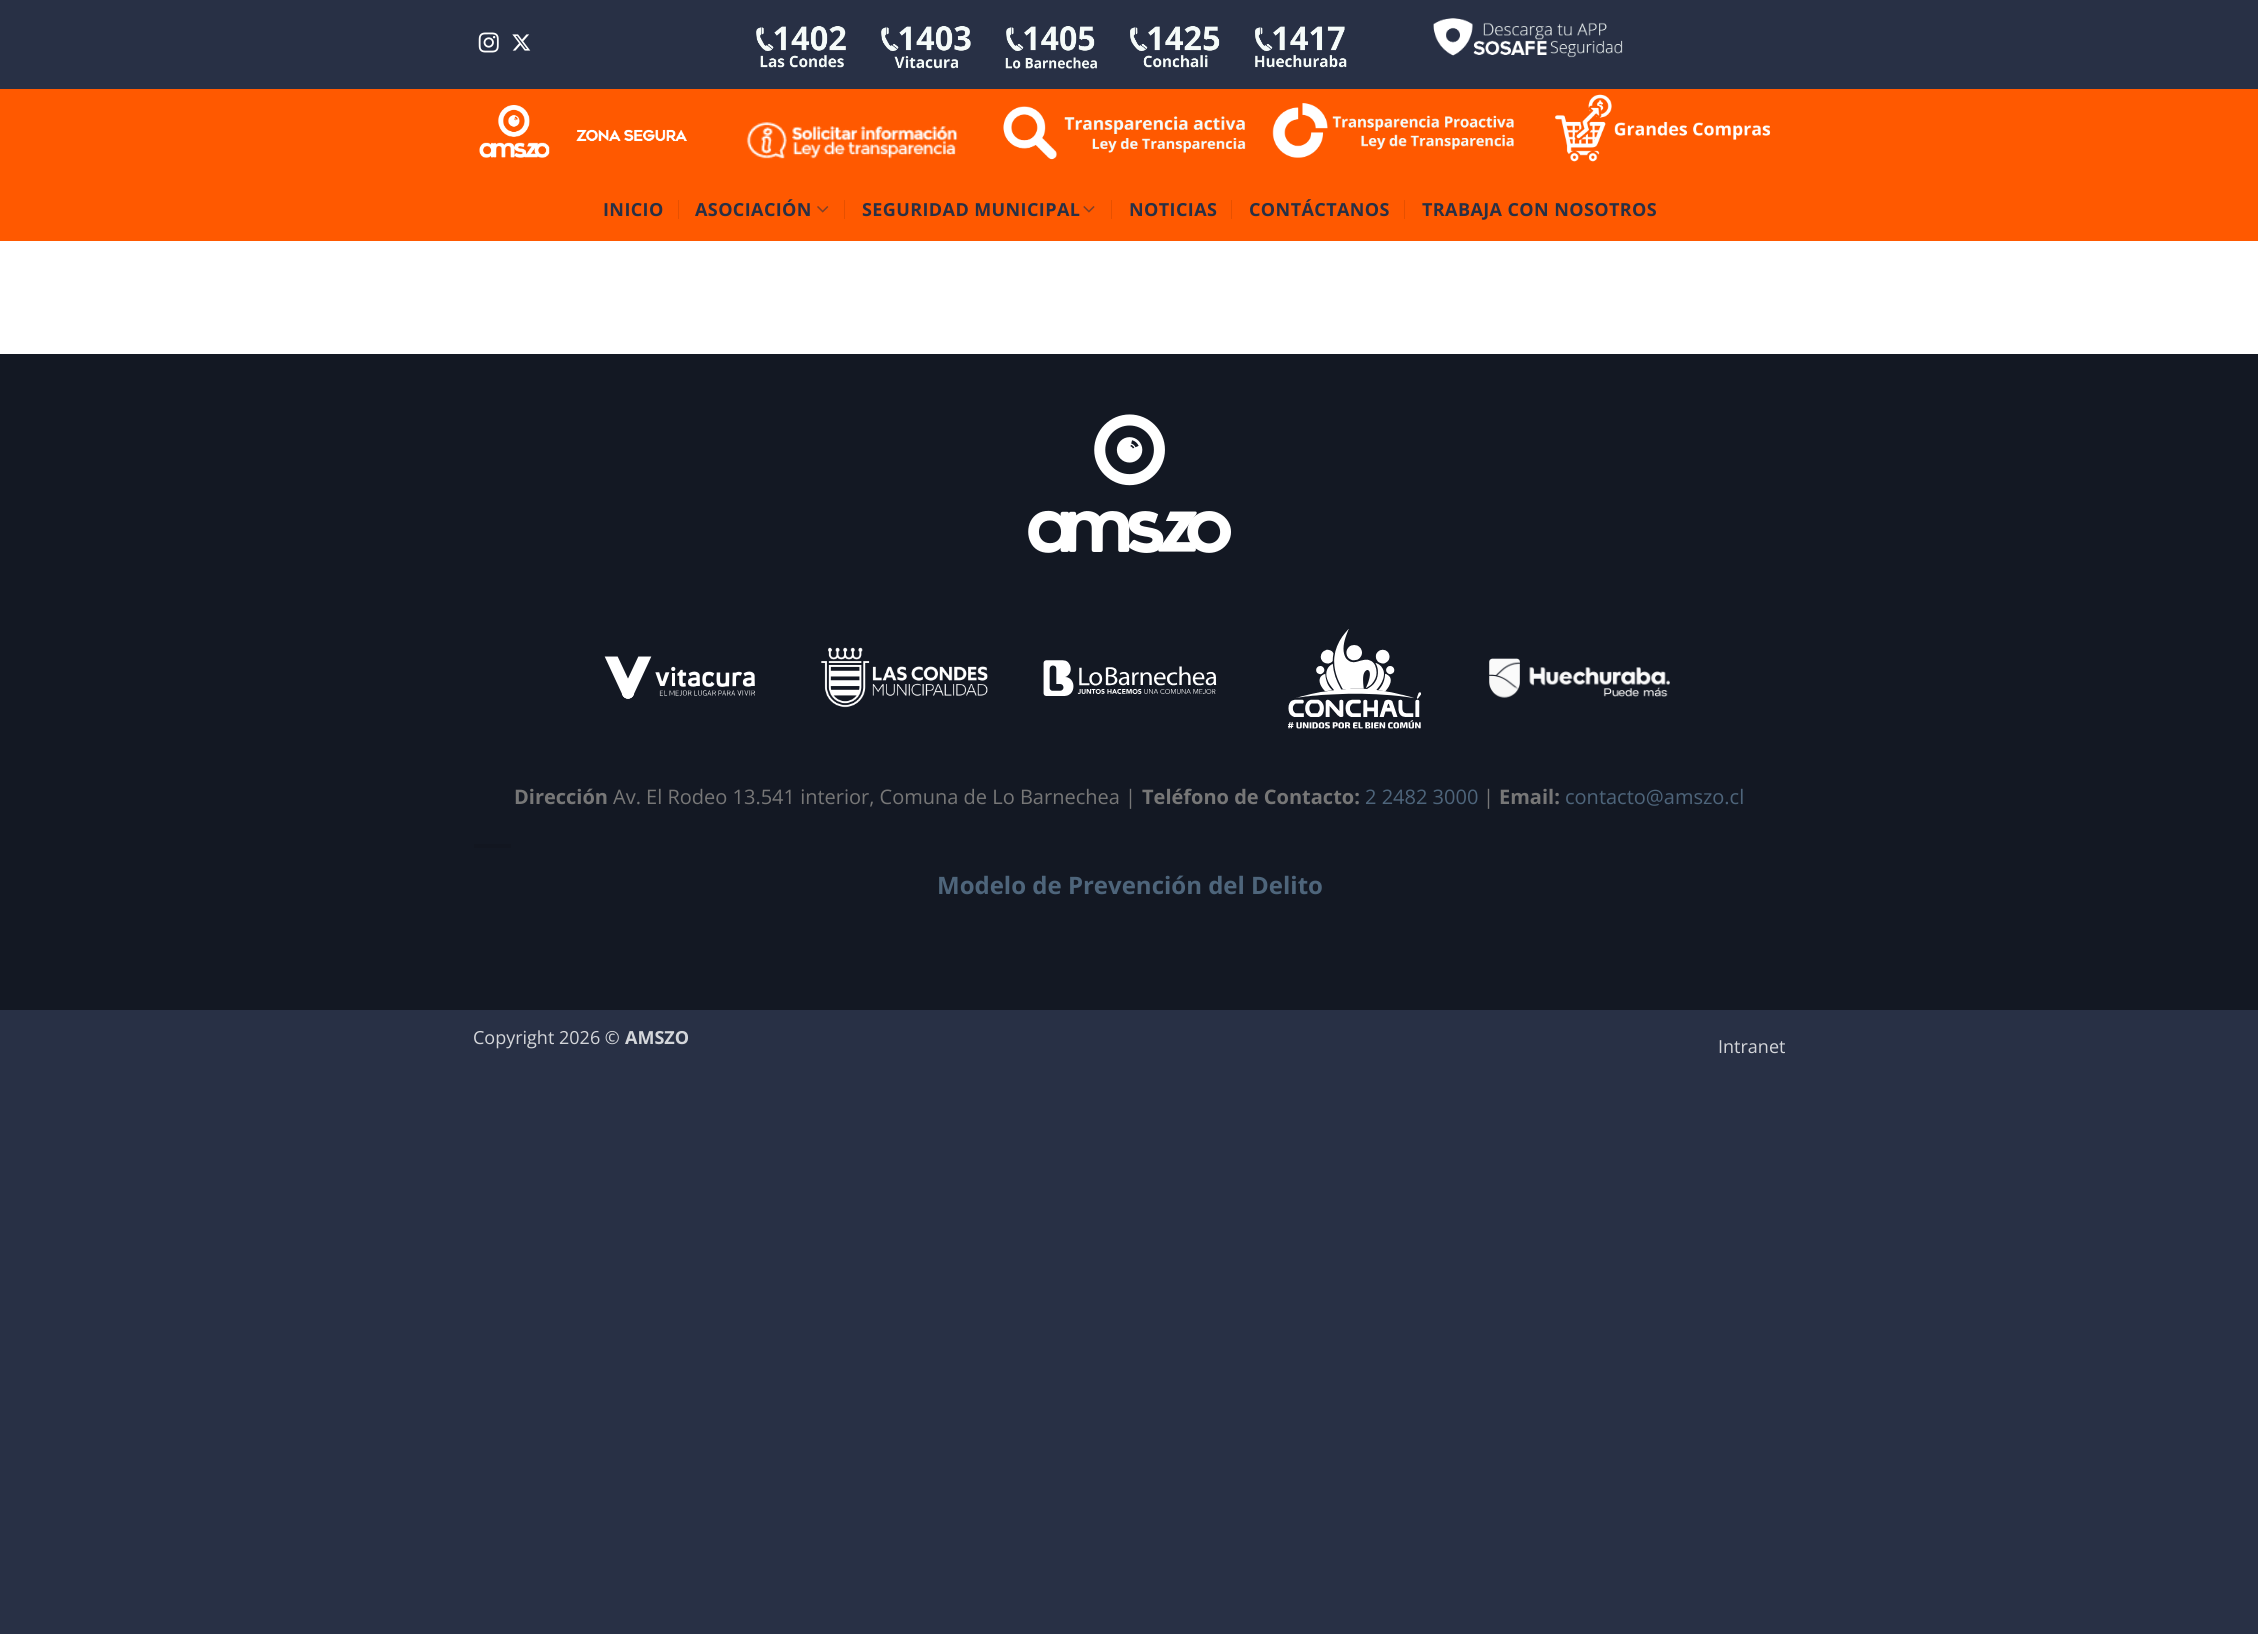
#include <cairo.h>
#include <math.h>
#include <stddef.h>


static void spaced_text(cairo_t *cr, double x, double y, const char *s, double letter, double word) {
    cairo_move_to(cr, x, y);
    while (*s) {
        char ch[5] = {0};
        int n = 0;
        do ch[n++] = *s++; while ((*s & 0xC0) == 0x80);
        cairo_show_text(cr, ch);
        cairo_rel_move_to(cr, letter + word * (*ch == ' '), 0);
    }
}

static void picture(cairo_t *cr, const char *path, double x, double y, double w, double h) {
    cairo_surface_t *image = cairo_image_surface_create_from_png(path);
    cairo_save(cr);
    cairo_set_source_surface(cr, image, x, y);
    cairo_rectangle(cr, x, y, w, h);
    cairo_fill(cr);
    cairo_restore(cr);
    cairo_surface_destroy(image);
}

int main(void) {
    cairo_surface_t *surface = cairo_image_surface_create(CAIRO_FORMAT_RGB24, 2258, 1634);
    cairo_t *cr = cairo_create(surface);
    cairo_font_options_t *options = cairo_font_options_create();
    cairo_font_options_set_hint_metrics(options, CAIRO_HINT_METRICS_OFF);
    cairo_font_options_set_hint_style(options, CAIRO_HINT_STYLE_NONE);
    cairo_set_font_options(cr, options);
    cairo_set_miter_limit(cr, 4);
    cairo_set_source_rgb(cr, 0.157, 0.188, 0.271);
    cairo_paint(cr);
    cairo_set_source_rgb(cr, 1, 1, 1);
    cairo_rectangle(cr, 0, 241, 2258, 113);
    cairo_fill(cr);
    picture(cr, "img1.png", 478, 32, 21, 21);
    picture(cr, "img2.png", 512, 34, 19, 17);
    picture(cr, "img3.png", 756, 26, 90, 42);
    picture(cr, "img4.png", 881, 26, 90, 43);
    picture(cr, "img5.png", 1005, 26, 92, 43);
    picture(cr, "img6.png", 1130, 26, 90, 42);
    picture(cr, "img7.png", 1255, 26, 92, 42);
    picture(cr, "img8.png", 1433, 18, 190, 40);
    cairo_set_source_rgb(cr, 1, 0.349, 0);
    cairo_rectangle(cr, 0, 89, 2258, 152);
    cairo_fill(cr);
    picture(cr, "img9.png", 479, 105, 208, 53);
    picture(cr, "img10.png", 746, 122, 212, 37);
    picture(cr, "img11.png", 1003, 106, 243, 54);
    picture(cr, "img12.png", 1272, 103, 242, 55);
    picture(cr, "img13.png", 1554, 94, 217, 68);
    cairo_select_font_face(cr, "Open Sans", CAIRO_FONT_SLANT_NORMAL, CAIRO_FONT_WEIGHT_BOLD);
    cairo_set_font_size(cr, 18);
    cairo_set_source_rgb(cr, 0.157, 0.188, 0.271);
    spaced_text(cr, 603, 216, "INICIO", 0.4, 0);
    cairo_set_source_rgb(cr, 0.902, 0.314, 0);
    cairo_rectangle(cr, 678, 200, 1, 19);
    cairo_fill(cr);
    cairo_set_source_rgb(cr, 0.157, 0.188, 0.271);
    spaced_text(cr, 695, 216, "ASOCIACIÓN", 0.4, 0);
    picture(cr, "img14.png", 817, 206, 12, 7);
    cairo_set_source_rgb(cr, 0.902, 0.314, 0);
    cairo_rectangle(cr, 844, 200, 1, 19);
    cairo_fill(cr);
    cairo_set_source_rgb(cr, 0.157, 0.188, 0.271);
    spaced_text(cr, 862, 216, "SEGURIDAD MUNICIPAL", 0.4, 0);
    picture(cr, "img15.png", 1083, 206, 12, 7);
    cairo_set_source_rgb(cr, 0.902, 0.314, 0);
    cairo_rectangle(cr, 1111, 200, 1, 19);
    cairo_fill(cr);
    cairo_set_source_rgb(cr, 0.157, 0.188, 0.271);
    spaced_text(cr, 1129, 216, "NOTICIAS", 0.4, 0);
    cairo_set_source_rgb(cr, 0.902, 0.314, 0);
    cairo_rectangle(cr, 1231, 200, 1, 19);
    cairo_fill(cr);
    cairo_set_source_rgb(cr, 0.157, 0.188, 0.271);
    spaced_text(cr, 1249, 216, "CONTÁCTANOS", 0.4, 0);
    cairo_set_source_rgb(cr, 0.902, 0.314, 0);
    cairo_rectangle(cr, 1404, 200, 1, 19);
    cairo_fill(cr);
    cairo_set_source_rgb(cr, 0.157, 0.188, 0.271);
    spaced_text(cr, 1422, 216, "TRABAJA CON NOSOTROS", 0.4, 0);
    cairo_set_source_rgb(cr, 0.078, 0.094, 0.137);
    cairo_rectangle(cr, 0, 354, 2258, 656);
    cairo_fill(cr);
    picture(cr, "img16.png", 1028, 414, 203, 139);
    picture(cr, "img17.png", 604, 656, 151, 43);
    picture(cr, "img18.png", 821, 647, 167, 61);
    picture(cr, "img19.png", 1043, 660, 174, 36);
    picture(cr, "img20.png", 1288, 629, 133, 100);
    picture(cr, "img21.png", 1489, 658, 181, 40);
    cairo_set_font_size(cr, 20);
    cairo_set_source_rgb(cr, 0.467, 0.467, 0.467);
    cairo_move_to(cr, 514, 804);
    cairo_show_text(cr, "Dirección");
    cairo_select_font_face(cr, "Open Sans", CAIRO_FONT_SLANT_NORMAL, CAIRO_FONT_WEIGHT_NORMAL);
    cairo_move_to(cr, 613, 804);
    cairo_show_text(cr, "Av. El Rodeo 13.541 interior, Comuna de Lo Barnechea |");
    cairo_select_font_face(cr, "Open Sans", CAIRO_FONT_SLANT_NORMAL, CAIRO_FONT_WEIGHT_BOLD);
    cairo_move_to(cr, 1142, 804);
    cairo_show_text(cr, "Teléfono de Contacto:");
    cairo_select_font_face(cr, "Open Sans", CAIRO_FONT_SLANT_NORMAL, CAIRO_FONT_WEIGHT_NORMAL);
    cairo_set_source_rgb(cr, 0.306, 0.396, 0.482);
    cairo_move_to(cr, 1365, 804);
    cairo_show_text(cr, "2 2482 3000");
    cairo_set_source_rgb(cr, 0.467, 0.467, 0.467);
    cairo_move_to(cr, 1483, 804);
    cairo_show_text(cr, "|");
    cairo_select_font_face(cr, "Open Sans", CAIRO_FONT_SLANT_NORMAL, CAIRO_FONT_WEIGHT_BOLD);
    cairo_move_to(cr, 1499, 804);
    cairo_show_text(cr, "Email:");
    cairo_select_font_face(cr, "Open Sans", CAIRO_FONT_SLANT_NORMAL, CAIRO_FONT_WEIGHT_NORMAL);
    cairo_set_source_rgb(cr, 0.306, 0.396, 0.482);
    cairo_move_to(cr, 1565, 804);
    cairo_show_text(cr, "contacto@amszo.cl");
    cairo_set_source_rgb(cr, 0.071, 0.086, 0.125);
    cairo_rectangle(cr, 474, 844, 37, 4);
    cairo_fill(cr);
    cairo_select_font_face(cr, "Open Sans", CAIRO_FONT_SLANT_NORMAL, CAIRO_FONT_WEIGHT_BOLD);
    cairo_set_font_size(cr, 24);
    cairo_set_source_rgb(cr, 0.306, 0.396, 0.482);
    cairo_move_to(cr, 937, 894);
    cairo_show_text(cr, "Modelo de Prevención del Delito");
    cairo_select_font_face(cr, "Open Sans", CAIRO_FONT_SLANT_NORMAL, CAIRO_FONT_WEIGHT_NORMAL);
    cairo_set_font_size(cr, 18);
    cairo_set_source_rgb(cr, 0.831, 0.839, 0.855);
    cairo_move_to(cr, 473, 1044);
    cairo_show_text(cr, "Copyright 2026 ©");
    cairo_select_font_face(cr, "Open Sans", CAIRO_FONT_SLANT_NORMAL, CAIRO_FONT_WEIGHT_BOLD);
    cairo_move_to(cr, 625, 1044);
    cairo_show_text(cr, "AMSZO");
    cairo_select_font_face(cr, "Open Sans", CAIRO_FONT_SLANT_NORMAL, CAIRO_FONT_WEIGHT_NORMAL);
    cairo_move_to(cr, 1718, 1053);
    cairo_show_text(cr, "Intranet");
    cairo_surface_write_to_png(surface, "page.png");
    cairo_font_options_destroy(options);
    cairo_destroy(cr);
    cairo_surface_destroy(surface);
    return 0;
}
